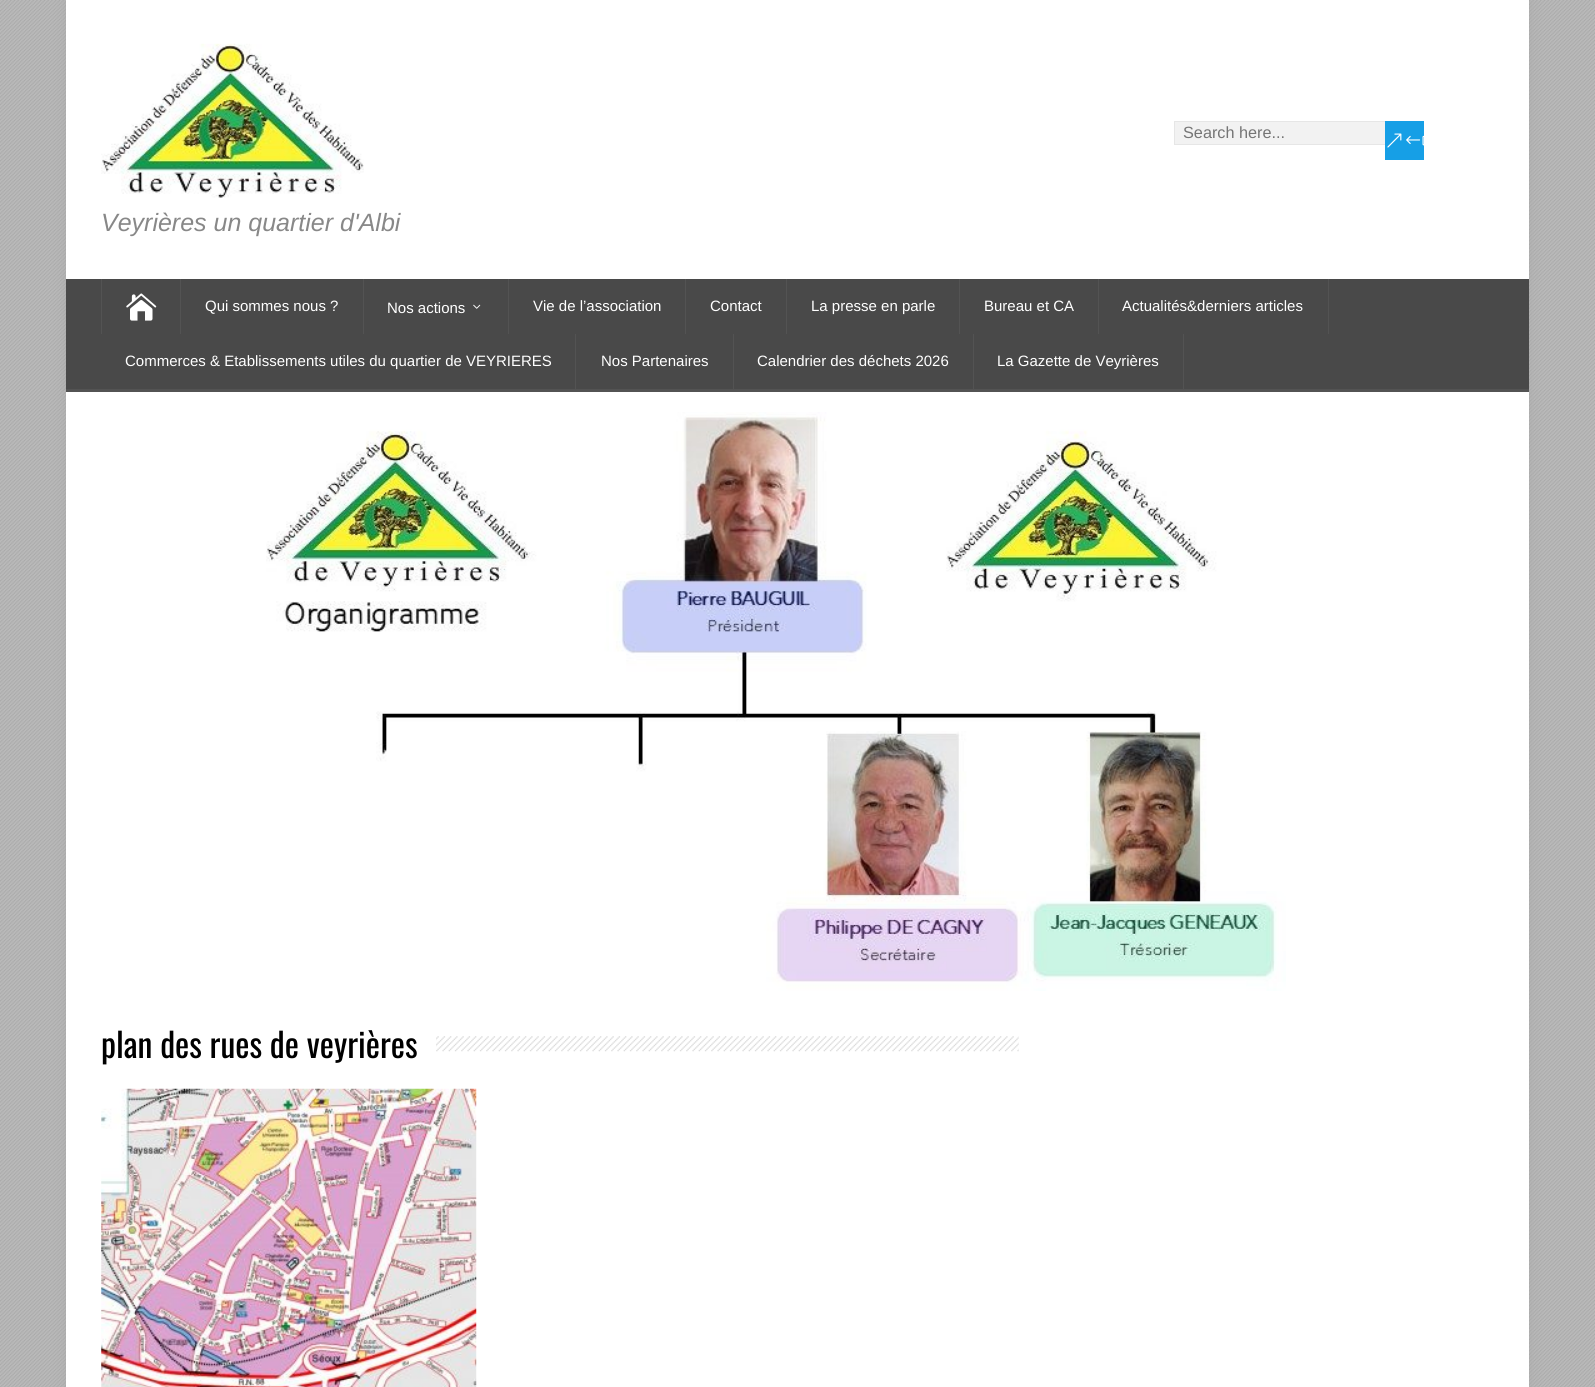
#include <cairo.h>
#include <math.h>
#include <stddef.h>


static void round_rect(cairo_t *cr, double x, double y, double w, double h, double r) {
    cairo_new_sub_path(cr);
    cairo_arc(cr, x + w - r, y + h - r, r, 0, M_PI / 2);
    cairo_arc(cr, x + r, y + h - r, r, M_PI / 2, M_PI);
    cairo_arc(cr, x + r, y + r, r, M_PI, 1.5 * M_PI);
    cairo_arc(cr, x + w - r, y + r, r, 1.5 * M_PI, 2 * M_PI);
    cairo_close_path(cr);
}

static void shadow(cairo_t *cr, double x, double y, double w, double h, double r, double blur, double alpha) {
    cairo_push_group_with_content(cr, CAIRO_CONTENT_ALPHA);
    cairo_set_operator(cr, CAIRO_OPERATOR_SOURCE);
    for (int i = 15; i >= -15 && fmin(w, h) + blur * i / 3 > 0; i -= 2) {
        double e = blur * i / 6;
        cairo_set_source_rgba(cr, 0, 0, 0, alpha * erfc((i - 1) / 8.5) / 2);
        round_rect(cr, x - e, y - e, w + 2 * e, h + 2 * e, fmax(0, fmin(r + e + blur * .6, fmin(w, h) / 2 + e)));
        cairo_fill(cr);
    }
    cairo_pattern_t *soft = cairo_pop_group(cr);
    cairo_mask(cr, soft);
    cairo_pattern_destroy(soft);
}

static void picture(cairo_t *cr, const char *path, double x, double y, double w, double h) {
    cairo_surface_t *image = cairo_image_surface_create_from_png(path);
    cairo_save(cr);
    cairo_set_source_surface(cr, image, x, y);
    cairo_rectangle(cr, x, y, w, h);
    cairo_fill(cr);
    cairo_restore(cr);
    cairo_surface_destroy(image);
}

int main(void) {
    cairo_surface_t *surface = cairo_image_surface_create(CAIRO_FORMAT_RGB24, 1595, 1387);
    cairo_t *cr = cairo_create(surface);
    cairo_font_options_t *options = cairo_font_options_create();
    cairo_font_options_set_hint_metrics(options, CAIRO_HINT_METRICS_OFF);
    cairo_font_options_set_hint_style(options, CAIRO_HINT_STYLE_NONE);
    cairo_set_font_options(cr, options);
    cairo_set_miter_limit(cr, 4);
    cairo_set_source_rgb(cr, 0.729, 0.729, 0.729);
    cairo_paint(cr);
    picture(cr, "img1.png", 0, 0, 1595, 1387);
    cairo_set_source_rgb(cr, 0.667, 0.667, 0.667);
    shadow(cr, 66, 0, 1463, 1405, 0, 6, 1);
    cairo_set_source_rgb(cr, 1, 1, 1);
    cairo_rectangle(cr, 66, 0, 1463, 1387);
    cairo_fill(cr);
    picture(cr, "img2.png", 101, 43, 263, 155);
    cairo_set_source_rgb(cr, 0.949, 0.949, 0.949);
    cairo_rectangle(cr, 1175, 122, 210, 22);
    cairo_fill(cr);
    cairo_rectangle(cr, 1174.5, 121.5, 239, 23);
    cairo_set_source_rgb(cr, 0.902, 0.902, 0.902);
    cairo_set_line_width(cr, 1);
    cairo_stroke(cr);
    cairo_select_font_face(cr, "Liberation Sans", CAIRO_FONT_SLANT_NORMAL, CAIRO_FONT_WEIGHT_NORMAL);
    cairo_set_font_size(cr, 16.25);
    cairo_set_source_rgb(cr, 0.459, 0.459, 0.459);
    cairo_move_to(cr, 1183, 138);
    cairo_show_text(cr, "Search here...");
    cairo_set_source_rgb(cr, 0.086, 0.624, 0.902);
    cairo_rectangle(cr, 1385, 121, 39, 39);
    cairo_fill(cr);
    picture(cr, "img3.png", 1387, 133, 37, 15);
    cairo_select_font_face(cr, "Liberation Sans", CAIRO_FONT_SLANT_ITALIC, CAIRO_FONT_WEIGHT_NORMAL);
    cairo_set_font_size(cr, 25);
    cairo_set_source_rgb(cr, 0.533, 0.533, 0.533);
    cairo_move_to(cr, 101, 231);
    cairo_show_text(cr, "Veyrières un quartier d'Albi");
    cairo_set_source_rgb(cr, 0.286, 0.286, 0.286);
    cairo_rectangle(cr, 66, 279, 1463, 110);
    cairo_fill(cr);
    cairo_set_source_rgb(cr, 0.325, 0.325, 0.325);
    cairo_rectangle(cr, 66, 389, 1463, 3);
    cairo_fill(cr);
    cairo_rectangle(cr, 180, 279, 1, 55);
    cairo_fill(cr);
    cairo_rectangle(cr, 101, 279, 1, 55);
    cairo_fill(cr);
    picture(cr, "img4.png", 126, 293, 31, 28);
    cairo_rectangle(cr, 363, 279, 1, 55);
    cairo_fill(cr);
    cairo_select_font_face(cr, "Liberation Sans", CAIRO_FONT_SLANT_NORMAL, CAIRO_FONT_WEIGHT_NORMAL);
    cairo_set_font_size(cr, 15);
    cairo_set_source_rgb(cr, 1, 1, 1);
    cairo_move_to(cr, 205, 311);
    cairo_show_text(cr, "Qui sommes nous ?");
    cairo_set_source_rgb(cr, 0.325, 0.325, 0.325);
    cairo_rectangle(cr, 508, 279, 1, 55);
    cairo_fill(cr);
    cairo_set_source_rgb(cr, 1, 1, 1);
    cairo_move_to(cr, 387, 313);
    cairo_show_text(cr, "Nos actions");
    picture(cr, "img5.png", 473, 304, 8, 5);
    cairo_set_source_rgb(cr, 0.325, 0.325, 0.325);
    cairo_rectangle(cr, 685, 279, 1, 55);
    cairo_fill(cr);
    cairo_set_source_rgb(cr, 1, 1, 1);
    cairo_move_to(cr, 533, 311);
    cairo_show_text(cr, "Vie de l’association");
    cairo_set_source_rgb(cr, 0.325, 0.325, 0.325);
    cairo_rectangle(cr, 786, 279, 1, 55);
    cairo_fill(cr);
    cairo_set_source_rgb(cr, 1, 1, 1);
    cairo_move_to(cr, 710, 311);
    cairo_show_text(cr, "Contact");
    cairo_set_source_rgb(cr, 0.325, 0.325, 0.325);
    cairo_rectangle(cr, 959, 279, 1, 55);
    cairo_fill(cr);
    cairo_set_source_rgb(cr, 1, 1, 1);
    cairo_move_to(cr, 811, 311);
    cairo_show_text(cr, "La presse en parle");
    cairo_set_source_rgb(cr, 0.325, 0.325, 0.325);
    cairo_rectangle(cr, 1098, 279, 1, 55);
    cairo_fill(cr);
    cairo_set_source_rgb(cr, 1, 1, 1);
    cairo_move_to(cr, 984, 311);
    cairo_show_text(cr, "Bureau et CA");
    cairo_set_source_rgb(cr, 0.325, 0.325, 0.325);
    cairo_rectangle(cr, 1328, 279, 1, 55);
    cairo_fill(cr);
    cairo_set_source_rgb(cr, 1, 1, 1);
    cairo_move_to(cr, 1122, 311);
    cairo_show_text(cr, "Actualités&derniers articles");
    cairo_set_source_rgb(cr, 0.325, 0.325, 0.325);
    cairo_rectangle(cr, 575, 334, 1, 55);
    cairo_fill(cr);
    cairo_set_source_rgb(cr, 1, 1, 1);
    cairo_move_to(cr, 125, 366);
    cairo_show_text(cr, "Commerces & Etablissements utiles du quartier de VEYRIERES");
    cairo_set_source_rgb(cr, 0.325, 0.325, 0.325);
    cairo_rectangle(cr, 733, 334, 1, 55);
    cairo_fill(cr);
    cairo_set_source_rgb(cr, 1, 1, 1);
    cairo_move_to(cr, 601, 366);
    cairo_show_text(cr, "Nos Partenaires");
    cairo_set_source_rgb(cr, 0.325, 0.325, 0.325);
    cairo_rectangle(cr, 973, 334, 1, 55);
    cairo_fill(cr);
    cairo_set_source_rgb(cr, 1, 1, 1);
    cairo_move_to(cr, 757, 366);
    cairo_show_text(cr, "Calendrier des déchets 2026");
    cairo_set_source_rgb(cr, 0.325, 0.325, 0.325);
    cairo_rectangle(cr, 1183, 334, 1, 55);
    cairo_fill(cr);
    cairo_set_source_rgb(cr, 1, 1, 1);
    cairo_move_to(cr, 997, 366);
    cairo_show_text(cr, "La Gazette de Veyrières");
    picture(cr, "img6.png", 266, 412, 1020, 579);
    picture(cr, "img7.png", 436, 1036, 583, 16);
    cairo_select_font_face(cr, "Oswald", CAIRO_FONT_SLANT_NORMAL, CAIRO_FONT_WEIGHT_NORMAL);
    cairo_set_font_size(cr, 33.75);
    cairo_set_source_rgb(cr, 0, 0, 0);
    cairo_move_to(cr, 101, 1058);
    cairo_show_text(cr, "plan des rues de veyrières");
    picture(cr, "img8.png", 101, 1088, 376, 299);
    cairo_surface_write_to_png(surface, "page.png");
    cairo_font_options_destroy(options);
    cairo_destroy(cr);
    cairo_surface_destroy(surface);
    return 0;
}
